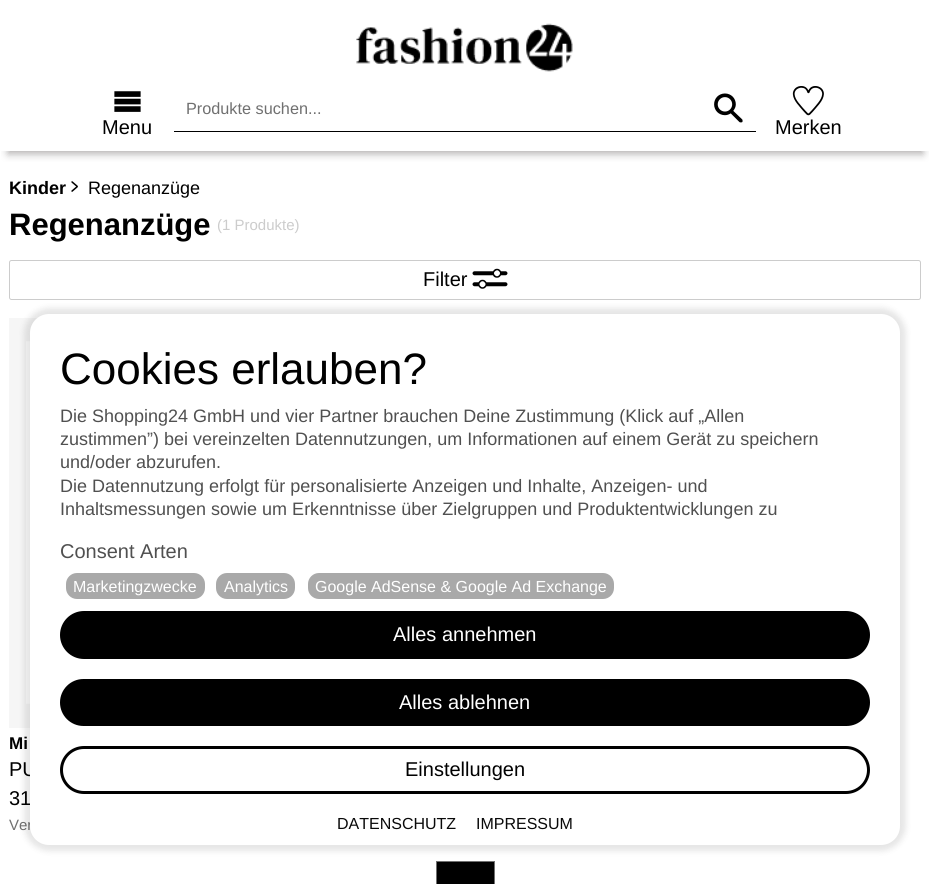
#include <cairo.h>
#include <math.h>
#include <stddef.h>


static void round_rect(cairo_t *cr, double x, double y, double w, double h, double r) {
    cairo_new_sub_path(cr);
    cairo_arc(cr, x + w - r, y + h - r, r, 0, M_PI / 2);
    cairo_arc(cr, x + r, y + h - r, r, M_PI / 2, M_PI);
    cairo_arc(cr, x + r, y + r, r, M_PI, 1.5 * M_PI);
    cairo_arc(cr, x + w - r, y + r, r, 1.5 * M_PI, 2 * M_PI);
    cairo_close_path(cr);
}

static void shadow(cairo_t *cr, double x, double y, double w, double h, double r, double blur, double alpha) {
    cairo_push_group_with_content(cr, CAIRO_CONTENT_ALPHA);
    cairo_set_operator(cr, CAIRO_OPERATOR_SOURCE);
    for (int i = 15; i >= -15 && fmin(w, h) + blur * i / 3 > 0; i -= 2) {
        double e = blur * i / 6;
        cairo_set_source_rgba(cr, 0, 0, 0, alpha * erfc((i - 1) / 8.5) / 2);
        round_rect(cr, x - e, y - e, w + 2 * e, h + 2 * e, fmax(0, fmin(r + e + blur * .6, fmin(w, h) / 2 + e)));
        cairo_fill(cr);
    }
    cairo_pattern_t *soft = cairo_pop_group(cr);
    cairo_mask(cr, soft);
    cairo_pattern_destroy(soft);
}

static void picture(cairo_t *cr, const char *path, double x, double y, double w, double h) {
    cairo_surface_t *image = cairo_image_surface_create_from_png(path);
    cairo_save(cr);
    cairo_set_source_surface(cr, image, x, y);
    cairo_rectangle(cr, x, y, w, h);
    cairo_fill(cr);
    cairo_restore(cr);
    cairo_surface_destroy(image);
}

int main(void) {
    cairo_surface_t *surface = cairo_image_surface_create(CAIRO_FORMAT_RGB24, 929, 884);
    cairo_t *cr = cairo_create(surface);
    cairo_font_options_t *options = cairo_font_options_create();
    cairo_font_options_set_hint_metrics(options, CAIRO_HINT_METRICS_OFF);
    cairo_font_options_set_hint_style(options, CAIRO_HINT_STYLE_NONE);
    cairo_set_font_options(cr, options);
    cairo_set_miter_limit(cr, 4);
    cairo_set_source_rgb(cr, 1, 1, 1);
    cairo_paint(cr);
    cairo_save(cr);
    cairo_rectangle(cr, 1, 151, 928, 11);
    cairo_clip(cr);
    cairo_set_source_rgb(cr, 0.706, 0.698, 0.698);
    shadow(cr, 8, 18, 915, 136, 0, 4, 1);
    cairo_restore(cr);
    picture(cr, "img1.png", 356, 23, 217, 49);
    cairo_set_source_rgb(cr, 0, 0, 0);
    cairo_rectangle(cr, 174, 131, 582, 1);
    cairo_fill(cr);
    cairo_select_font_face(cr, "Liberation Sans", CAIRO_FONT_SLANT_NORMAL, CAIRO_FONT_WEIGHT_NORMAL);
    cairo_set_font_size(cr, 16.25);
    cairo_set_source_rgb(cr, 0.439, 0.439, 0.439);
    cairo_move_to(cr, 186, 114);
    cairo_show_text(cr, "Produkte suchen...");
    picture(cr, "img2.png", 714, 93, 29, 30);
    picture(cr, "img3.png", 114, 91, 27, 21);
    cairo_set_font_size(cr, 20);
    cairo_set_source_rgb(cr, 0, 0, 0);
    cairo_move_to(cr, 102, 134);
    cairo_show_text(cr, "Menu");
    picture(cr, "img4.png", 792, 86, 32, 30);
    cairo_move_to(cr, 775, 134);
    cairo_show_text(cr, "Merken");
    cairo_select_font_face(cr, "Liberation Sans", CAIRO_FONT_SLANT_NORMAL, CAIRO_FONT_WEIGHT_BOLD);
    cairo_set_font_size(cr, 18);
    cairo_move_to(cr, 9, 194);
    cairo_show_text(cr, "Kinder");
    picture(cr, "img5.png", 71, 181, 7, 11);
    cairo_select_font_face(cr, "Liberation Sans", CAIRO_FONT_SLANT_NORMAL, CAIRO_FONT_WEIGHT_NORMAL);
    cairo_move_to(cr, 88, 194);
    cairo_show_text(cr, "Regenanzüge");
    cairo_select_font_face(cr, "Liberation Sans", CAIRO_FONT_SLANT_NORMAL, CAIRO_FONT_WEIGHT_BOLD);
    cairo_set_font_size(cr, 31);
    cairo_move_to(cr, 9, 235);
    cairo_show_text(cr, "Regenanzüge");
    cairo_select_font_face(cr, "Liberation Sans", CAIRO_FONT_SLANT_NORMAL, CAIRO_FONT_WEIGHT_NORMAL);
    cairo_set_font_size(cr, 15);
    cairo_set_source_rgb(cr, 0.8, 0.8, 0.8);
    cairo_move_to(cr, 217, 230);
    cairo_show_text(cr, "(1 Produkte)");
    round_rect(cr, 9.5, 260.5, 911, 39, 2);
    cairo_set_line_width(cr, 1);
    cairo_stroke(cr);
    cairo_set_font_size(cr, 20);
    cairo_set_source_rgb(cr, 0, 0, 0);
    cairo_move_to(cr, 423, 286);
    cairo_show_text(cr, "Filter");
    picture(cr, "img6.png", 472, 268, 36, 21);
    cairo_set_source_rgb(cr, 0.961, 0.961, 0.961);
    cairo_rectangle(cr, 9, 318, 29, 410);
    cairo_fill(cr);
    picture(cr, "img7.png", 26, 341, 4, 363);
    cairo_select_font_face(cr, "Liberation Sans", CAIRO_FONT_SLANT_NORMAL, CAIRO_FONT_WEIGHT_BOLD);
    cairo_set_font_size(cr, 17);
    cairo_set_source_rgb(cr, 0, 0, 0);
    cairo_move_to(cr, 9, 749);
    cairo_show_text(cr, "Mi");
    cairo_select_font_face(cr, "Liberation Sans", CAIRO_FONT_SLANT_NORMAL, CAIRO_FONT_WEIGHT_NORMAL);
    cairo_set_font_size(cr, 20);
    cairo_move_to(cr, 9, 776);
    cairo_show_text(cr, "PU");
    cairo_move_to(cr, 9, 805);
    cairo_show_text(cr, "31");
    cairo_set_font_size(cr, 15);
    cairo_set_source_rgb(cr, 0.439, 0.439, 0.439);
    cairo_move_to(cr, 9, 830);
    cairo_show_text(cr, "Ver");
    cairo_set_source_rgb(cr, 0, 0, 0);
    cairo_rectangle(cr, 436.5, 861.5, 58, 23);
    cairo_fill_preserve(cr);
    cairo_set_source_rgb(cr, 0.439, 0.439, 0.439);
    cairo_stroke(cr);
    cairo_set_source_rgb(cr, 0, 0, 0);
    shadow(cr, 24, 308, 882, 543, 25, 3, 0.1);
    cairo_set_source_rgb(cr, 1, 1, 1);
    round_rect(cr, 30, 314, 870, 531, 19);
    cairo_fill(cr);
    cairo_set_font_size(cr, 44);
    cairo_set_source_rgb(cr, 0, 0, 0);
    cairo_move_to(cr, 60, 384);
    cairo_show_text(cr, "Cookies erlauben?");
    cairo_set_font_size(cr, 18);
    cairo_set_source_rgb(cr, 0.314, 0.314, 0.314);
    cairo_move_to(cr, 60, 422);
    cairo_show_text(cr, "Die Shopping24 GmbH und vier Partner brauchen Deine Zustimmung (Klick auf „Allen");
    cairo_move_to(cr, 60, 445);
    cairo_show_text(cr, "zustimmen”) bei vereinzelten Datennutzungen, um Informationen auf einem Gerät zu speichern");
    cairo_move_to(cr, 60, 468);
    cairo_show_text(cr, "und/oder abzurufen.");
    cairo_move_to(cr, 60, 492);
    cairo_show_text(cr, "Die Datennutzung erfolgt für personalisierte Anzeigen und Inhalte, Anzeigen- und");
    cairo_move_to(cr, 60, 515);
    cairo_show_text(cr, "Inhaltsmessungen sowie um Erkenntnisse über Zielgruppen und Produktentwicklungen zu");
    cairo_set_font_size(cr, 20);
    cairo_move_to(cr, 60, 558);
    cairo_show_text(cr, "Consent Arten");
    cairo_set_source_rgb(cr, 0.663, 0.663, 0.663);
    round_rect(cr, 66, 573, 139, 26, 11);
    cairo_fill(cr);
    cairo_set_font_size(cr, 16);
    cairo_set_source_rgb(cr, 1, 1, 1);
    cairo_move_to(cr, 73, 592);
    cairo_show_text(cr, "Marketingzwecke");
    cairo_set_source_rgb(cr, 0.663, 0.663, 0.663);
    round_rect(cr, 216, 573, 79, 26, 11);
    cairo_fill(cr);
    cairo_set_source_rgb(cr, 1, 1, 1);
    cairo_move_to(cr, 224, 592);
    cairo_show_text(cr, "Analytics");
    cairo_set_source_rgb(cr, 0.663, 0.663, 0.663);
    round_rect(cr, 308, 573, 306, 26, 11);
    cairo_fill(cr);
    cairo_set_source_rgb(cr, 1, 1, 1);
    cairo_move_to(cr, 315, 592);
    cairo_show_text(cr, "Google AdSense & Google Ad Exchange");
    cairo_set_source_rgb(cr, 0, 0, 0);
    round_rect(cr, 61.5, 612.5, 807, 45, 22.5);
    cairo_fill_preserve(cr);
    cairo_set_line_width(cr, 3);
    cairo_stroke(cr);
    cairo_set_font_size(cr, 20);
    cairo_set_source_rgb(cr, 1, 1, 1);
    cairo_move_to(cr, 393, 641);
    cairo_show_text(cr, "Alles annehmen");
    cairo_set_source_rgb(cr, 0, 0, 0);
    round_rect(cr, 61.5, 680.5, 807, 44, 22);
    cairo_fill_preserve(cr);
    cairo_stroke(cr);
    cairo_set_source_rgb(cr, 1, 1, 1);
    cairo_move_to(cr, 399, 709);
    cairo_show_text(cr, "Alles ablehnen");
    round_rect(cr, 61.5, 747.5, 807, 45, 22.5);
    cairo_set_source_rgb(cr, 0, 0, 0);
    cairo_stroke(cr);
    cairo_move_to(cr, 405, 776);
    cairo_show_text(cr, "Einstellungen");
    cairo_set_font_size(cr, 16);
    cairo_set_source_rgb(cr, 0.039, 0.039, 0.039);
    cairo_move_to(cr, 337, 829);
    cairo_show_text(cr, "DATENSCHUTZ");
    cairo_move_to(cr, 476, 829);
    cairo_show_text(cr, "IMPRESSUM");
    cairo_surface_write_to_png(surface, "page.png");
    cairo_font_options_destroy(options);
    cairo_destroy(cr);
    cairo_surface_destroy(surface);
    return 0;
}
